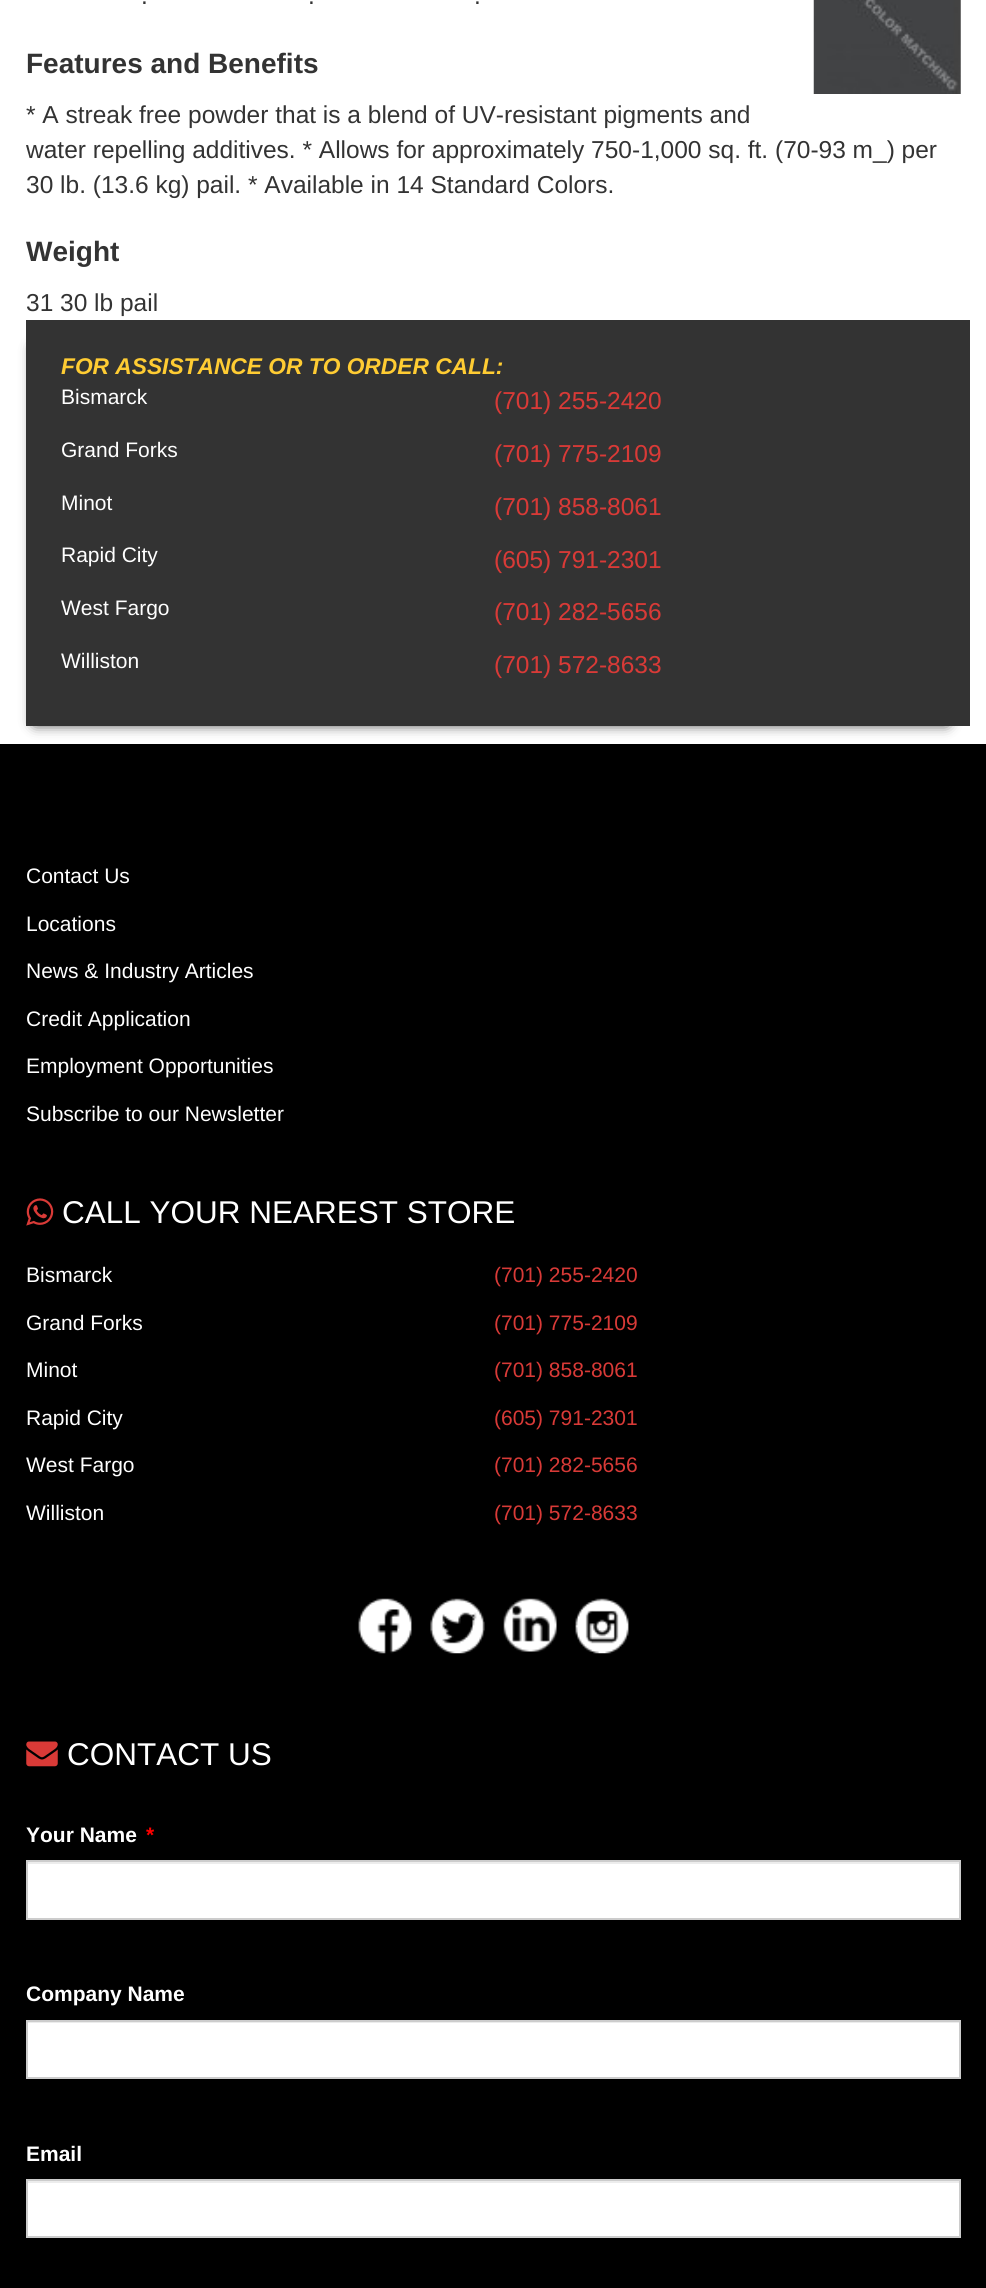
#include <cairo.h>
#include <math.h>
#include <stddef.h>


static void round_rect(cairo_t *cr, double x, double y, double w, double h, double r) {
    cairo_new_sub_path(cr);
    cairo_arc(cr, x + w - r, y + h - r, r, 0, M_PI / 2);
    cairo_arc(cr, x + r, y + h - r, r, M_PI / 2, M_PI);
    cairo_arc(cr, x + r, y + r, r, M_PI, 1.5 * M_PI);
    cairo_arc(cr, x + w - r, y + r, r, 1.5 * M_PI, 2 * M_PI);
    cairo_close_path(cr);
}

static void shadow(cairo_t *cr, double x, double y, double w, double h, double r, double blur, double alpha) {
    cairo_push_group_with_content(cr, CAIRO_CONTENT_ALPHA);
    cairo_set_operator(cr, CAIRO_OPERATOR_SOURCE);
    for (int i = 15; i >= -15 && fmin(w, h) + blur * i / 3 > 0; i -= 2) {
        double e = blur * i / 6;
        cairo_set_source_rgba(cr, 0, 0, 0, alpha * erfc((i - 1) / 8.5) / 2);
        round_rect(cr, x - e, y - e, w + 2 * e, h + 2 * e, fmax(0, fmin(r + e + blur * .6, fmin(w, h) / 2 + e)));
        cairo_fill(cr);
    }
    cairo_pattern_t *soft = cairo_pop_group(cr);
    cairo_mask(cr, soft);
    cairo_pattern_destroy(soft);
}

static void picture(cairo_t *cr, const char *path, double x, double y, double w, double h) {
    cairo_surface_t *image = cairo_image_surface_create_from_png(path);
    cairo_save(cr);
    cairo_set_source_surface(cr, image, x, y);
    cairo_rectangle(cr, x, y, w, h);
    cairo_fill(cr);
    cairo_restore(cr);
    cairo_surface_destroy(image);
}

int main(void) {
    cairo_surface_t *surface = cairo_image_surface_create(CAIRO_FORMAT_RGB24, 986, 2288);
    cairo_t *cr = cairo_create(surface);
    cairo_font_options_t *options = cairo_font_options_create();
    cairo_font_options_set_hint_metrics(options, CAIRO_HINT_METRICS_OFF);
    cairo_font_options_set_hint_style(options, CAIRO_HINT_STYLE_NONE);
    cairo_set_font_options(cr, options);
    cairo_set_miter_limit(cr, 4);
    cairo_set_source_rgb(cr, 1, 1, 1);
    cairo_paint(cr);
    cairo_select_font_face(cr, "Liberation Sans", CAIRO_FONT_SLANT_NORMAL, CAIRO_FONT_WEIGHT_NORMAL);
    cairo_set_font_size(cr, 24.5);
    cairo_set_source_rgb(cr, 0.2, 0.2, 0.2);
    cairo_move_to(cr, 141, 4);
    cairo_show_text(cr, ".");
    cairo_move_to(cr, 308, 4);
    cairo_show_text(cr, ".");
    cairo_move_to(cr, 474, 4);
    cairo_show_text(cr, ".");
    picture(cr, "img1.png", 813, 0, 148, 94);
    cairo_select_font_face(cr, "Liberation Sans", CAIRO_FONT_SLANT_NORMAL, CAIRO_FONT_WEIGHT_BOLD);
    cairo_set_font_size(cr, 28);
    cairo_move_to(cr, 26, 73);
    cairo_show_text(cr, "Features and Benefits");
    cairo_select_font_face(cr, "Liberation Sans", CAIRO_FONT_SLANT_NORMAL, CAIRO_FONT_WEIGHT_NORMAL);
    cairo_set_font_size(cr, 24.5);
    cairo_move_to(cr, 26, 123);
    cairo_show_text(cr, "* A streak free powder that is a blend of UV-resistant pigments and");
    cairo_move_to(cr, 26, 158);
    cairo_show_text(cr, "water repelling additives. * Allows for approximately 750-1,000 sq. ft. (70-93 m_) per");
    cairo_move_to(cr, 26, 193);
    cairo_show_text(cr, "30 lb. (13.6 kg) pail. * Available in 14 Standard Colors.");
    cairo_select_font_face(cr, "Liberation Sans", CAIRO_FONT_SLANT_NORMAL, CAIRO_FONT_WEIGHT_BOLD);
    cairo_set_font_size(cr, 28);
    cairo_move_to(cr, 26, 261);
    cairo_show_text(cr, "Weight");
    cairo_select_font_face(cr, "Liberation Sans", CAIRO_FONT_SLANT_NORMAL, CAIRO_FONT_WEIGHT_NORMAL);
    cairo_set_font_size(cr, 24.5);
    cairo_move_to(cr, 26, 311);
    cairo_show_text(cr, "31 30 lb pail");
    cairo_set_source_rgb(cr, 0, 0, 0);
    cairo_rectangle(cr, 0, 744, 986, 1544);
    cairo_fill(cr);
    cairo_set_source_rgb(cr, 0, 0, 0);
    shadow(cr, 35, 348, 912, 375, 0, 7, 1);
    cairo_set_source_rgb(cr, 0.2, 0.2, 0.2);
    cairo_rectangle(cr, 26, 320, 944, 406);
    cairo_fill(cr);
    cairo_select_font_face(cr, "Liberation Sans", CAIRO_FONT_SLANT_ITALIC, CAIRO_FONT_WEIGHT_BOLD);
    cairo_set_font_size(cr, 22.75);
    cairo_set_source_rgb(cr, 1, 0.8, 0.2);
    cairo_move_to(cr, 61, 374);
    cairo_show_text(cr, "FOR ASSISTANCE OR TO ORDER CALL:");
    cairo_select_font_face(cr, "Liberation Sans", CAIRO_FONT_SLANT_NORMAL, CAIRO_FONT_WEIGHT_NORMAL);
    cairo_set_font_size(cr, 21);
    cairo_set_source_rgb(cr, 1, 1, 1);
    cairo_move_to(cr, 61, 404);
    cairo_show_text(cr, "Bismarck");
    cairo_set_font_size(cr, 24.5);
    cairo_set_source_rgb(cr, 0.851, 0.227, 0.216);
    cairo_move_to(cr, 494, 409);
    cairo_show_text(cr, "(701) 255-2420");
    cairo_set_font_size(cr, 21);
    cairo_set_source_rgb(cr, 1, 1, 1);
    cairo_move_to(cr, 61, 457);
    cairo_show_text(cr, "Grand Forks");
    cairo_set_font_size(cr, 24.5);
    cairo_set_source_rgb(cr, 0.851, 0.227, 0.216);
    cairo_move_to(cr, 494, 462);
    cairo_show_text(cr, "(701) 775-2109");
    cairo_set_font_size(cr, 21);
    cairo_set_source_rgb(cr, 1, 1, 1);
    cairo_move_to(cr, 61, 510);
    cairo_show_text(cr, "Minot");
    cairo_set_font_size(cr, 24.5);
    cairo_set_source_rgb(cr, 0.851, 0.227, 0.216);
    cairo_move_to(cr, 494, 515);
    cairo_show_text(cr, "(701) 858-8061");
    cairo_set_font_size(cr, 21);
    cairo_set_source_rgb(cr, 1, 1, 1);
    cairo_move_to(cr, 61, 562);
    cairo_show_text(cr, "Rapid City");
    cairo_set_font_size(cr, 24.5);
    cairo_set_source_rgb(cr, 0.851, 0.227, 0.216);
    cairo_move_to(cr, 494, 568);
    cairo_show_text(cr, "(605) 791-2301");
    cairo_set_font_size(cr, 21);
    cairo_set_source_rgb(cr, 1, 1, 1);
    cairo_move_to(cr, 61, 615);
    cairo_show_text(cr, "West Fargo");
    cairo_set_font_size(cr, 24.5);
    cairo_set_source_rgb(cr, 0.851, 0.227, 0.216);
    cairo_move_to(cr, 494, 620);
    cairo_show_text(cr, "(701) 282-5656");
    cairo_set_font_size(cr, 21);
    cairo_set_source_rgb(cr, 1, 1, 1);
    cairo_move_to(cr, 61, 668);
    cairo_show_text(cr, "Williston");
    cairo_set_font_size(cr, 24.5);
    cairo_set_source_rgb(cr, 0.851, 0.227, 0.216);
    cairo_move_to(cr, 494, 673);
    cairo_show_text(cr, "(701) 572-8633");
    cairo_set_font_size(cr, 21);
    cairo_set_source_rgb(cr, 1, 1, 1);
    cairo_move_to(cr, 26, 883);
    cairo_show_text(cr, "Contact Us");
    cairo_move_to(cr, 26, 931);
    cairo_show_text(cr, "Locations");
    cairo_move_to(cr, 26, 978);
    cairo_show_text(cr, "News & Industry Articles");
    cairo_move_to(cr, 26, 1026);
    cairo_show_text(cr, "Credit Application");
    cairo_move_to(cr, 26, 1073);
    cairo_show_text(cr, "Employment Opportunities");
    cairo_move_to(cr, 26, 1121);
    cairo_show_text(cr, "Subscribe to our Newsletter");
    picture(cr, "img2.png", 26, 1198, 28, 28);
    cairo_set_font_size(cr, 31.5);
    cairo_move_to(cr, 62, 1223);
    cairo_show_text(cr, "CALL YOUR NEAREST STORE");
    cairo_set_font_size(cr, 21);
    cairo_move_to(cr, 26, 1282);
    cairo_show_text(cr, "Bismarck");
    cairo_set_source_rgb(cr, 0.851, 0.227, 0.216);
    cairo_move_to(cr, 494, 1282);
    cairo_show_text(cr, "(701) 255-2420");
    cairo_set_source_rgb(cr, 1, 1, 1);
    cairo_move_to(cr, 26, 1330);
    cairo_show_text(cr, "Grand Forks");
    cairo_set_source_rgb(cr, 0.851, 0.227, 0.216);
    cairo_move_to(cr, 494, 1330);
    cairo_show_text(cr, "(701) 775-2109");
    cairo_set_source_rgb(cr, 1, 1, 1);
    cairo_move_to(cr, 26, 1377);
    cairo_show_text(cr, "Minot");
    cairo_set_source_rgb(cr, 0.851, 0.227, 0.216);
    cairo_move_to(cr, 494, 1377);
    cairo_show_text(cr, "(701) 858-8061");
    cairo_set_source_rgb(cr, 1, 1, 1);
    cairo_move_to(cr, 26, 1425);
    cairo_show_text(cr, "Rapid City");
    cairo_set_source_rgb(cr, 0.851, 0.227, 0.216);
    cairo_move_to(cr, 494, 1425);
    cairo_show_text(cr, "(605) 791-2301");
    cairo_set_source_rgb(cr, 1, 1, 1);
    cairo_move_to(cr, 26, 1472);
    cairo_show_text(cr, "West Fargo");
    cairo_set_source_rgb(cr, 0.851, 0.227, 0.216);
    cairo_move_to(cr, 494, 1472);
    cairo_show_text(cr, "(701) 282-5656");
    cairo_set_source_rgb(cr, 1, 1, 1);
    cairo_move_to(cr, 26, 1520);
    cairo_show_text(cr, "Williston");
    cairo_set_source_rgb(cr, 0.851, 0.227, 0.216);
    cairo_move_to(cr, 494, 1520);
    cairo_show_text(cr, "(701) 572-8633");
    picture(cr, "img3.png", 358, 1598, 54, 56);
    picture(cr, "img4.png", 430, 1598, 55, 56);
    picture(cr, "img5.png", 503, 1598, 54, 54);
    picture(cr, "img6.png", 575, 1598, 54, 56);
    picture(cr, "img7.png", 26, 1741, 32, 26);
    cairo_set_font_size(cr, 31.5);
    cairo_set_source_rgb(cr, 1, 1, 1);
    cairo_move_to(cr, 67, 1765);
    cairo_show_text(cr, "CONTACT US");
    cairo_select_font_face(cr, "Liberation Sans", CAIRO_FONT_SLANT_NORMAL, CAIRO_FONT_WEIGHT_BOLD);
    cairo_set_font_size(cr, 21);
    cairo_move_to(cr, 26, 1842);
    cairo_show_text(cr, "Your Name");
    cairo_set_source_rgb(cr, 1, 0, 0);
    cairo_move_to(cr, 146, 1842);
    cairo_show_text(cr, "*");
    cairo_set_source_rgb(cr, 1, 1, 1);
    cairo_rectangle(cr, 28, 1864, 931, 54);
    cairo_fill(cr);
    cairo_set_source_rgb(cr, 0.925, 0.925, 0.925);
    cairo_rectangle(cr, 28, 1862, 931, 2);
    cairo_fill(cr);
    cairo_rectangle(cr, 27, 1861, 933, 58);
    cairo_set_source_rgb(cr, 0.8, 0.8, 0.8);
    cairo_stroke(cr);
    cairo_set_source_rgb(cr, 1, 1, 1);
    cairo_move_to(cr, 26, 2001);
    cairo_show_text(cr, "Company Name");
    cairo_rectangle(cr, 28, 2023, 931, 54);
    cairo_fill(cr);
    cairo_set_source_rgb(cr, 0.925, 0.925, 0.925);
    cairo_rectangle(cr, 28, 2022, 931, 1);
    cairo_fill(cr);
    cairo_rectangle(cr, 27, 2021, 933, 57);
    cairo_set_source_rgb(cr, 0.8, 0.8, 0.8);
    cairo_stroke(cr);
    cairo_set_source_rgb(cr, 1, 1, 1);
    cairo_move_to(cr, 26, 2161);
    cairo_show_text(cr, "Email");
    cairo_rectangle(cr, 28, 2183, 931, 53);
    cairo_fill(cr);
    cairo_set_source_rgb(cr, 0.925, 0.925, 0.925);
    cairo_rectangle(cr, 28, 2181, 931, 2);
    cairo_fill(cr);
    cairo_rectangle(cr, 27, 2180, 933, 57);
    cairo_set_source_rgb(cr, 0.8, 0.8, 0.8);
    cairo_stroke(cr);
    cairo_surface_write_to_png(surface, "page.png");
    cairo_font_options_destroy(options);
    cairo_destroy(cr);
    cairo_surface_destroy(surface);
    return 0;
}
